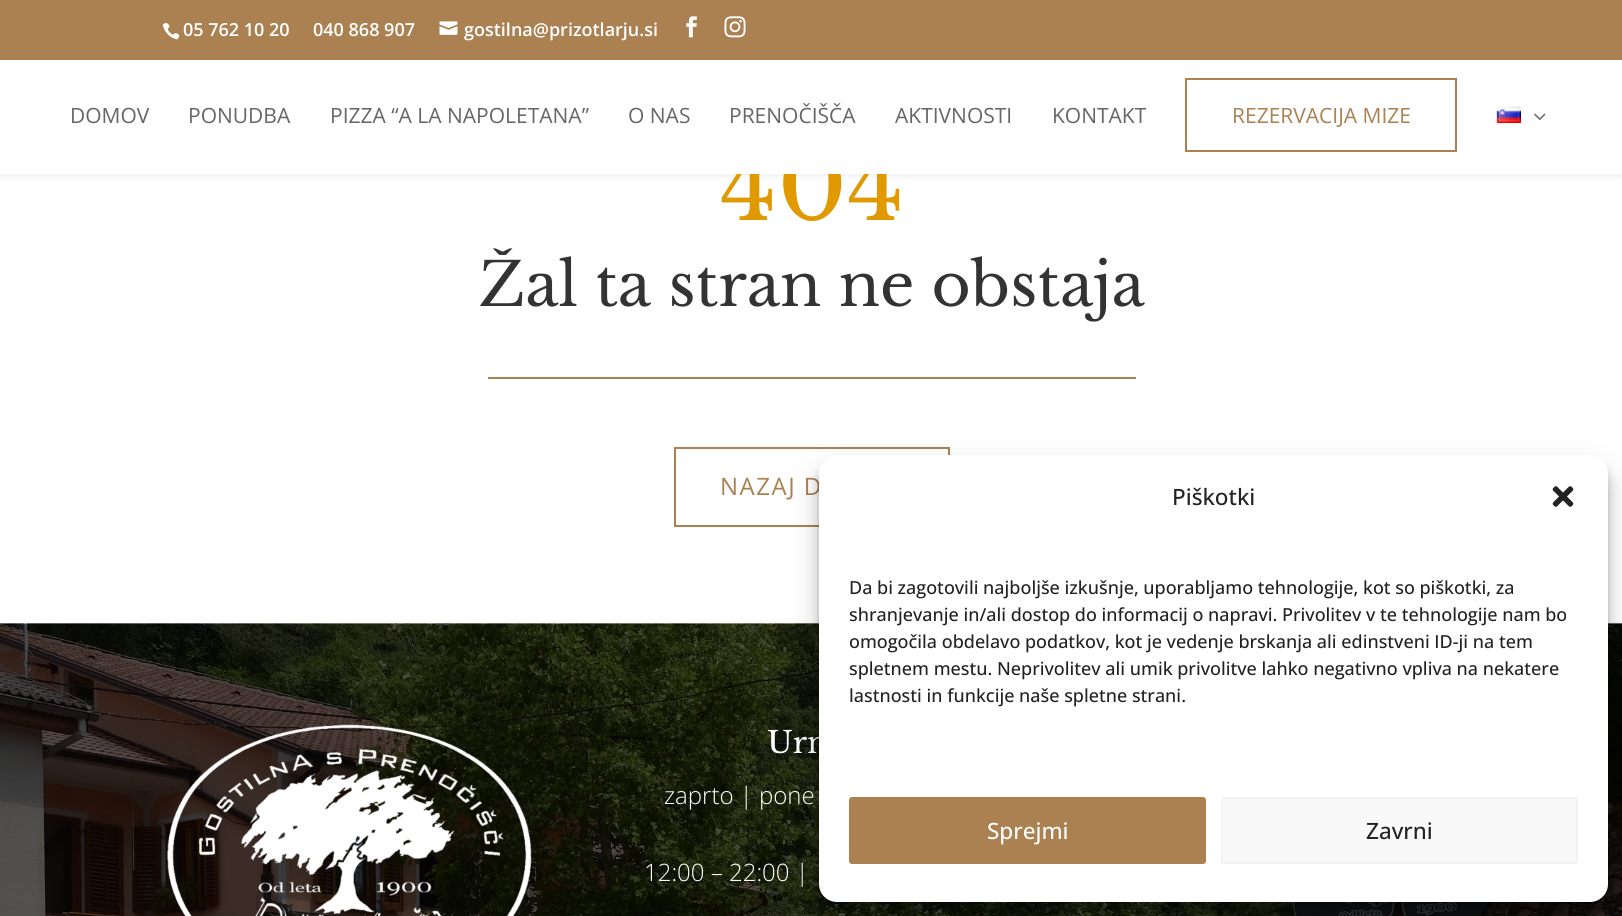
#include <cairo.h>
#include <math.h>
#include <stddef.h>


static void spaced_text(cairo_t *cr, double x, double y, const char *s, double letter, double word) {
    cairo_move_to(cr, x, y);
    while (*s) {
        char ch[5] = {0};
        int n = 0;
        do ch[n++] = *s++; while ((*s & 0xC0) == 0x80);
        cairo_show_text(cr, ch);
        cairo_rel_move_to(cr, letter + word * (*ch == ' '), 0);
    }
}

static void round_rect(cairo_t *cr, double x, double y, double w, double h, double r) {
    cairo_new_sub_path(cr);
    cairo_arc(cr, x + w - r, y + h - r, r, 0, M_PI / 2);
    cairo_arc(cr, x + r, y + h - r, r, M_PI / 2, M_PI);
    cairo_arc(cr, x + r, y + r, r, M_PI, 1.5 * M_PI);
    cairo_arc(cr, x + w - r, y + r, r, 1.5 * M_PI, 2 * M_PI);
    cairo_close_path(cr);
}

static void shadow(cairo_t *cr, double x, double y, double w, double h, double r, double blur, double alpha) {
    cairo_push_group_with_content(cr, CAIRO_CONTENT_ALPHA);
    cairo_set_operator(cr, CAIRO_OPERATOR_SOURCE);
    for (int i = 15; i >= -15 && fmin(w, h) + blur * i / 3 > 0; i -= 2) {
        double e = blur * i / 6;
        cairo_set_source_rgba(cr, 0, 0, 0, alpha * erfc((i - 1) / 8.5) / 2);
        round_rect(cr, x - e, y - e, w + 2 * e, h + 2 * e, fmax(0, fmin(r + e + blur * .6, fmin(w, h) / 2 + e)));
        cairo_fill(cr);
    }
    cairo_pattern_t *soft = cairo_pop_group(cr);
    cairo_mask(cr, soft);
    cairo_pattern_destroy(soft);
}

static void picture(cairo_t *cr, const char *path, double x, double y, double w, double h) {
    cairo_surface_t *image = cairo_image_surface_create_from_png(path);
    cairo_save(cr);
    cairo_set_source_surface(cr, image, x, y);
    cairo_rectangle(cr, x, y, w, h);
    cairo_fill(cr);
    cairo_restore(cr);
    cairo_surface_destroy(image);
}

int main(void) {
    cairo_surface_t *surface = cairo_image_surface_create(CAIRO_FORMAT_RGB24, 1622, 916);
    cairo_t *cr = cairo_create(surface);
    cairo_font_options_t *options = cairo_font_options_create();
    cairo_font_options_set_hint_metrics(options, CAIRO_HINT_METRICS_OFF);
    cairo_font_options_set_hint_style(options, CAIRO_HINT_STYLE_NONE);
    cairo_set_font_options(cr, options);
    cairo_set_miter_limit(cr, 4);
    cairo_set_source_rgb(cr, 1, 1, 1);
    cairo_paint(cr);
    cairo_set_source_rgb(cr, 0, 0, 0);
    shadow(cr, 0, 60, 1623, 114, 0, 5, 0.1);
    cairo_set_source_rgb(cr, 0.671, 0.506, 0.322);
    cairo_rectangle(cr, 0, 0, 1622, 60);
    cairo_fill(cr);
    picture(cr, "img1.png", 162, 22, 18, 18);
    cairo_select_font_face(cr, "Open Sans SemiBold", CAIRO_FONT_SLANT_NORMAL, CAIRO_FONT_WEIGHT_NORMAL);
    cairo_set_font_size(cr, 18);
    cairo_set_source_rgb(cr, 1, 1, 1);
    cairo_move_to(cr, 183, 36);
    cairo_show_text(cr, "05 762 10 20");
    cairo_move_to(cr, 313, 36);
    cairo_show_text(cr, "040 868 907");
    picture(cr, "img2.png", 439, 21, 19, 14);
    cairo_move_to(cr, 464, 36);
    cairo_show_text(cr, "gostilna@prizotlarju.si");
    picture(cr, "img3.png", 686, 16, 11, 22);
    picture(cr, "img4.png", 724, 16, 22, 22);
    cairo_select_font_face(cr, "Libre Baskerville", CAIRO_FONT_SLANT_NORMAL, CAIRO_FONT_WEIGHT_NORMAL);
    cairo_set_font_size(cr, 98);
    cairo_set_source_rgb(cr, 0.878, 0.6, 0);
    cairo_move_to(cr, 720, 220);
    cairo_show_text(cr, "404");
    cairo_set_source_rgb(cr, 1, 1, 1);
    cairo_rectangle(cr, 0, 60, 1622, 114);
    cairo_fill(cr);
    cairo_select_font_face(cr, "Open Sans", CAIRO_FONT_SLANT_NORMAL, CAIRO_FONT_WEIGHT_NORMAL);
    cairo_set_font_size(cr, 21);
    cairo_set_source_rgb(cr, 0.4, 0.4, 0.4);
    cairo_move_to(cr, 70, 123);
    cairo_show_text(cr, "DOMOV");
    cairo_move_to(cr, 188, 123);
    cairo_show_text(cr, "PONUDBA");
    cairo_move_to(cr, 330, 123);
    cairo_show_text(cr, "PIZZA “A LA NAPOLETANA”");
    cairo_move_to(cr, 628, 123);
    cairo_show_text(cr, "O NAS");
    cairo_move_to(cr, 729, 123);
    cairo_show_text(cr, "PRENOČIŠČA");
    cairo_move_to(cr, 895, 123);
    cairo_show_text(cr, "AKTIVNOSTI");
    cairo_move_to(cr, 1052, 123);
    cairo_show_text(cr, "KONTAKT");
    cairo_rectangle(cr, 1186, 79, 270, 72);
    cairo_set_source_rgb(cr, 0.671, 0.506, 0.322);
    cairo_stroke(cr);
    cairo_move_to(cr, 1232, 123);
    cairo_show_text(cr, "REZERVACIJA MIZE");
    picture(cr, "img5.png", 1496, 106, 25, 17);
    picture(cr, "img6.png", 1534, 113, 12, 7);
    cairo_select_font_face(cr, "Libre Baskerville", CAIRO_FONT_SLANT_NORMAL, CAIRO_FONT_WEIGHT_NORMAL);
    cairo_set_font_size(cr, 60);
    cairo_set_source_rgb(cr, 0.2, 0.2, 0.2);
    cairo_move_to(cr, 479, 306);
    cairo_show_text(cr, "Žal ta stran ne obstaja");
    cairo_set_source_rgb(cr, 0.671, 0.506, 0.322);
    cairo_rectangle(cr, 488, 377, 648, 2);
    cairo_fill(cr);
    cairo_rectangle(cr, 675, 448, 274, 78);
    cairo_stroke(cr);
    cairo_select_font_face(cr, "Open Sans", CAIRO_FONT_SLANT_NORMAL, CAIRO_FONT_WEIGHT_NORMAL);
    cairo_set_font_size(cr, 24);
    spaced_text(cr, 720, 495, "NAZAJ D", 1.5, 0);
    picture(cr, "img7.png", 0, 623, 1622, 293);
    picture(cr, "img8.png", 167, 724, 365, 192);
    cairo_select_font_face(cr, "Libre Baskerville", CAIRO_FONT_SLANT_NORMAL, CAIRO_FONT_WEIGHT_NORMAL);
    cairo_set_font_size(cr, 30);
    cairo_set_source_rgb(cr, 1, 1, 1);
    cairo_move_to(cr, 767, 753);
    cairo_show_text(cr, "Urn");
    cairo_select_font_face(cr, "Open Sans Light", CAIRO_FONT_SLANT_NORMAL, CAIRO_FONT_WEIGHT_NORMAL);
    cairo_set_font_size(cr, 24);
    cairo_move_to(cr, 664, 804);
    cairo_show_text(cr, "zaprto | pone");
    cairo_move_to(cr, 644, 881);
    cairo_show_text(cr, "12:00 – 22:00 |");
    cairo_set_source_rgb(cr, 0, 0, 0);
    shadow(cr, 819, 464, 789, 447, 18, 4.5, 0.23);
    shadow(cr, 819, 470, 789, 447, 18, 15, 0.19);
    cairo_set_source_rgb(cr, 1, 1, 1);
    round_rect(cr, 819, 455, 789, 447, 18);
    cairo_fill(cr);
    cairo_select_font_face(cr, "Open Sans Medium", CAIRO_FONT_SLANT_NORMAL, CAIRO_FONT_WEIGHT_NORMAL);
    cairo_set_font_size(cr, 22.5);
    cairo_set_source_rgb(cr, 0.133, 0.133, 0.133);
    cairo_move_to(cr, 1172, 505);
    cairo_show_text(cr, "Piškotki");
    picture(cr, "img9.png", 1552, 486, 22, 21);
    cairo_set_font_size(cr, 18);
    cairo_move_to(cr, 849, 594);
    cairo_show_text(cr, "Da bi zagotovili najboljše izkušnje, uporabljamo tehnologije, kot so piškotki, za");
    cairo_move_to(cr, 849, 621);
    cairo_show_text(cr, "shranjevanje in/ali dostop do informacij o napravi. Privolitev v te tehnologije nam bo");
    cairo_move_to(cr, 849, 648);
    cairo_show_text(cr, "omogočila obdelavo podatkov, kot je vedenje brskanja ali edinstveni ID-ji na tem");
    cairo_move_to(cr, 849, 675);
    cairo_show_text(cr, "spletnem mestu. Neprivolitev ali umik privolitve lahko negativno vpliva na nekatere");
    cairo_move_to(cr, 849, 702);
    cairo_show_text(cr, "lastnosti in funkcije naše spletne strani.");
    cairo_set_source_rgb(cr, 0.671, 0.506, 0.322);
    round_rect(cr, 850, 798, 355, 65, 2);
    cairo_fill_preserve(cr);
    cairo_stroke(cr);
    cairo_set_font_size(cr, 22.5);
    cairo_set_source_rgb(cr, 1, 1, 1);
    cairo_move_to(cr, 987, 839);
    cairo_show_text(cr, "Sprejmi");
    cairo_set_source_rgb(cr, 0.976, 0.976, 0.976);
    round_rect(cr, 1222, 798, 355, 65, 2);
    cairo_fill_preserve(cr);
    cairo_set_source_rgb(cr, 0.949, 0.949, 0.949);
    cairo_stroke(cr);
    cairo_set_source_rgb(cr, 0.133, 0.133, 0.133);
    cairo_move_to(cr, 1366, 839);
    cairo_show_text(cr, "Zavrni");
    cairo_surface_write_to_png(surface, "page.png");
    cairo_font_options_destroy(options);
    cairo_destroy(cr);
    cairo_surface_destroy(surface);
    return 0;
}
